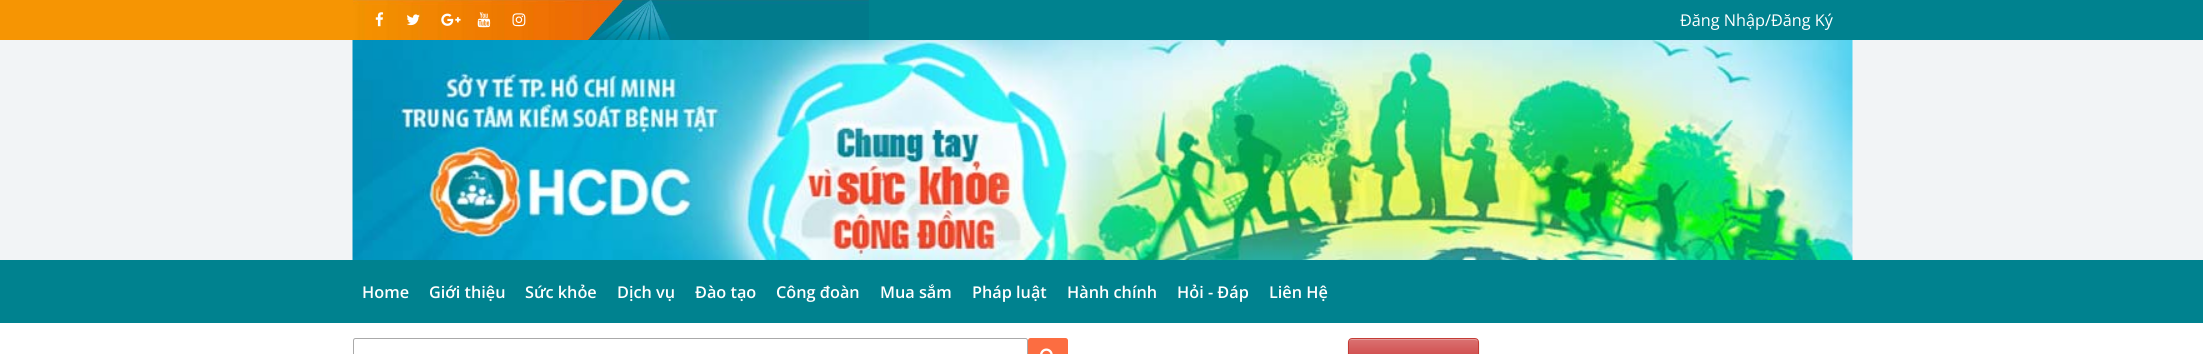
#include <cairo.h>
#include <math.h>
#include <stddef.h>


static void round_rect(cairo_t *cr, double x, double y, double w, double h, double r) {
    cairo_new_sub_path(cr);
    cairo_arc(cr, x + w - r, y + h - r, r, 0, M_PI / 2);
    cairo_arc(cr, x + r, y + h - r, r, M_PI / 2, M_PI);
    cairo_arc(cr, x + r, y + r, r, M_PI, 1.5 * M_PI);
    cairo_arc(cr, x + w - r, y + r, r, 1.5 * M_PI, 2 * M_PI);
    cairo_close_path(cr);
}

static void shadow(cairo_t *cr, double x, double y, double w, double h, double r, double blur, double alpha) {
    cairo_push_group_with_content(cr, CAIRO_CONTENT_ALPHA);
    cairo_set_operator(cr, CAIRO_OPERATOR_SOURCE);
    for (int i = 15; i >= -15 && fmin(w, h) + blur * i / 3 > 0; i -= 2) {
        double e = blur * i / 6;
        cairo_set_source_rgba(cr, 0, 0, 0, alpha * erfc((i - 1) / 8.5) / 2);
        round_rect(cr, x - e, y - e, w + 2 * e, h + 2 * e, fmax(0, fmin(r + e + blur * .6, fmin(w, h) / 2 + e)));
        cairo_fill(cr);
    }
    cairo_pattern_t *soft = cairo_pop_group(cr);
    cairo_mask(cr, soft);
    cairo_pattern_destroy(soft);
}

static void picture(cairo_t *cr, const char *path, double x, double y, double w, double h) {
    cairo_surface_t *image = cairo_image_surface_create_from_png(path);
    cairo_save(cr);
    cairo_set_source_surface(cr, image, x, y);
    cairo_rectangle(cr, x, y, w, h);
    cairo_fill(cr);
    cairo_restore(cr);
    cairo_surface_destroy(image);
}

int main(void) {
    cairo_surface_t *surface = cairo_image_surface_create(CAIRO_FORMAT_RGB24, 2203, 354);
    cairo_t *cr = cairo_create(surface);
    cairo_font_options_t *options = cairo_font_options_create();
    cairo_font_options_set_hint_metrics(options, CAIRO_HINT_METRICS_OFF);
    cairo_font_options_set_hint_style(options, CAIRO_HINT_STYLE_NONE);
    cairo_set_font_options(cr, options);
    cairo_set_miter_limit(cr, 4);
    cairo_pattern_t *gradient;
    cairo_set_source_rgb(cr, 0.949, 0.957, 0.961);
    cairo_paint(cr);
    cairo_set_source_rgb(cr, 0, 0.51, 0.561);
    cairo_rectangle(cr, 868, 0, 1335, 40);
    cairo_fill(cr);
    picture(cr, "img1.png", 353, 0, 516, 40);
    cairo_set_source_rgb(cr, 0.961, 0.584, 0.012);
    cairo_rectangle(cr, 0, 0, 353, 40);
    cairo_fill(cr);
    picture(cr, "img2.png", 375, 12, 9, 15);
    picture(cr, "img3.png", 406, 14, 14, 12);
    picture(cr, "img4.png", 441, 13, 20, 13);
    picture(cr, "img5.png", 477, 12, 14, 16);
    picture(cr, "img6.png", 512, 13, 14, 14);
    cairo_select_font_face(cr, "Open Sans", CAIRO_FONT_SLANT_NORMAL, CAIRO_FONT_WEIGHT_NORMAL);
    cairo_set_font_size(cr, 16.25);
    cairo_set_source_rgb(cr, 1, 1, 1);
    cairo_move_to(cr, 1680, 26);
    cairo_show_text(cr, "Đăng Nhập/Đăng Ký");
    picture(cr, "img7.png", 352, 40, 1501, 220);
    cairo_set_source_rgb(cr, 0, 0.51, 0.561);
    cairo_rectangle(cr, 0, 260, 2203, 63);
    cairo_fill(cr);
    cairo_select_font_face(cr, "Open Sans SemiBold", CAIRO_FONT_SLANT_NORMAL, CAIRO_FONT_WEIGHT_NORMAL);
    cairo_set_source_rgb(cr, 1, 1, 1);
    cairo_move_to(cr, 362, 298);
    cairo_show_text(cr, "Home");
    cairo_move_to(cr, 429, 298);
    cairo_show_text(cr, "Giới thiệu");
    cairo_move_to(cr, 525, 298);
    cairo_show_text(cr, "Sức khỏe");
    cairo_move_to(cr, 617, 298);
    cairo_show_text(cr, "Dịch vụ");
    cairo_move_to(cr, 695, 298);
    cairo_show_text(cr, "Đào tạo");
    cairo_move_to(cr, 776, 298);
    cairo_show_text(cr, "Công đoàn");
    cairo_move_to(cr, 880, 298);
    cairo_show_text(cr, "Mua sắm");
    cairo_move_to(cr, 972, 298);
    cairo_show_text(cr, "Pháp luật");
    cairo_move_to(cr, 1067, 298);
    cairo_show_text(cr, "Hành chính");
    cairo_move_to(cr, 1177, 298);
    cairo_show_text(cr, "Hỏi - Đáp");
    cairo_move_to(cr, 1269, 298);
    cairo_show_text(cr, "Liên Hệ");
    cairo_rectangle(cr, 0, 323, 2203, 31);
    cairo_fill(cr);
    round_rect(cr, 353.5, 338.5, 674, 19, 2);
    cairo_set_source_rgb(cr, 0.667, 0.667, 0.667);
    cairo_set_line_width(cr, 1);
    cairo_stroke(cr);
    cairo_set_source_rgb(cr, 0.988, 0.427, 0.255);
    round_rect(cr, 1028, 338, 40, 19, 2.5);
    cairo_fill(cr);
    picture(cr, "img8.png", 1040, 348, 13, 6);
    cairo_set_source_rgb(cr, 0, 0, 0);
    shadow(cr, 1349, 341, 129, 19, 2.5, 1, 0.5);
    cairo_set_source_rgb(cr, 0.792, 0.208, 0.208);
    round_rect(cr, 1349, 339, 129, 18, 2.5);
    cairo_fill(cr);
    gradient = cairo_pattern_create_linear(1413, 339, 1413, 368);
    cairo_pattern_add_color_stop_rgba(gradient, 0, 1, 1, 1, 0.3);
    cairo_pattern_add_color_stop_rgba(gradient, 1, 1, 1, 1, 0);
    cairo_set_source(cr, gradient);
    cairo_pattern_destroy(gradient);
    round_rect(cr, 1349, 339, 129, 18, 2.5);
    cairo_fill(cr);
    cairo_set_source_rgba(cr, 1, 1, 1, 0.3);
    cairo_new_path(cr);
    cairo_move_to(cr, 1351, 340);
    cairo_line_to(cr, 1475, 340);
    cairo_line_to(cr, 1478, 341);
    cairo_line_to(cr, 1478, 342);
    cairo_curve_to(cr, 1478, 340, 1477, 339, 1476, 339);
    cairo_line_to(cr, 1352, 339);
    cairo_curve_to(cr, 1350, 339, 1349, 340, 1349, 342);
    cairo_curve_to(cr, 1349, 341, 1350, 340, 1351, 340);
    cairo_close_path(cr);
    cairo_fill(cr);
    round_rect(cr, 1348.5, 338.5, 130, 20, 3.5);
    cairo_set_source_rgb(cr, 0.769, 0.235, 0.208);
    cairo_stroke(cr);
    cairo_surface_write_to_png(surface, "page.png");
    cairo_font_options_destroy(options);
    cairo_destroy(cr);
    cairo_surface_destroy(surface);
    return 0;
}
